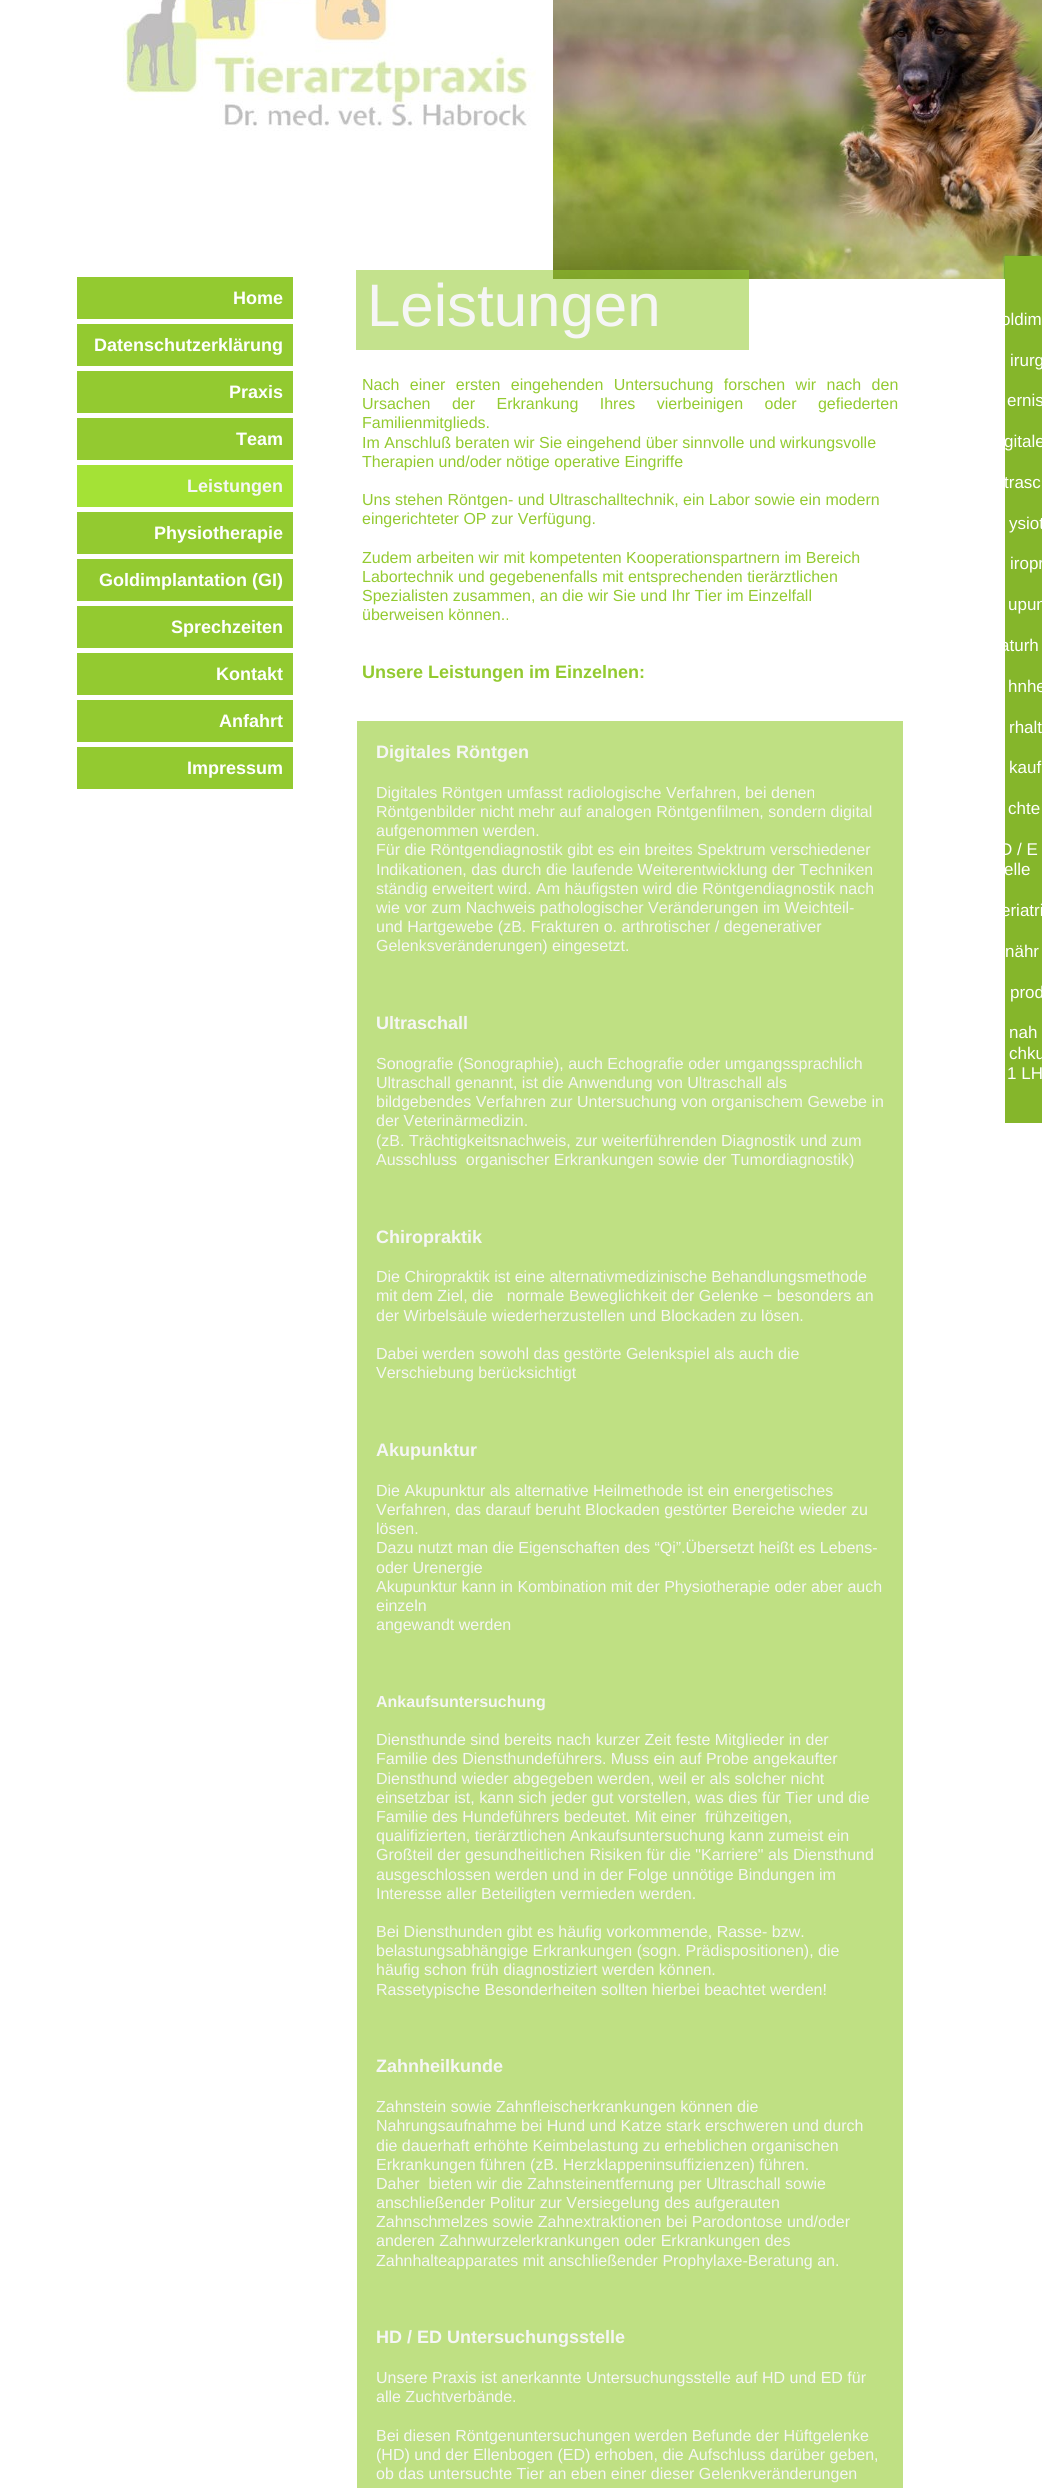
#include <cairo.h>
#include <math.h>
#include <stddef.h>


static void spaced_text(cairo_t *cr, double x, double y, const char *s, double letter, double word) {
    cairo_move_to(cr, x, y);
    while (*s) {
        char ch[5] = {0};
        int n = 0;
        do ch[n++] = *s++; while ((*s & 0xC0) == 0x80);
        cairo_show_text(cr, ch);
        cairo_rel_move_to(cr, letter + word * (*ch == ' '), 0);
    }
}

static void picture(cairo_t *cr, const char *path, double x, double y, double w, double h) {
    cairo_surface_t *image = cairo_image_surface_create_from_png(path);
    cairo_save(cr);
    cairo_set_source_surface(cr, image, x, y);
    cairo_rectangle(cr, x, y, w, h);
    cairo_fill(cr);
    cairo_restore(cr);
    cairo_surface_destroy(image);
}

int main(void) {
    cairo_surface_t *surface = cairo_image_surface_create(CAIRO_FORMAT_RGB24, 1042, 2488);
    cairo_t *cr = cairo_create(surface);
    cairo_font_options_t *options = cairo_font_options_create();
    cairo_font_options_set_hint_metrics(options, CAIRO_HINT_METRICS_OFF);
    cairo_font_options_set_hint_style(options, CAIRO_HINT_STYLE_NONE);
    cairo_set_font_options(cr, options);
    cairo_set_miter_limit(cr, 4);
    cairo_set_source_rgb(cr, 1, 1, 1);
    cairo_paint(cr);
    picture(cr, "img1.png", 123, 0, 413, 131);
    picture(cr, "img2.png", 553, 0, 489, 279);
    cairo_set_source_rgb(cr, 0.576, 0.792, 0.188);
    cairo_rectangle(cr, 77, 277, 216, 42);
    cairo_fill(cr);
    cairo_select_font_face(cr, "Liberation Sans", CAIRO_FONT_SLANT_NORMAL, CAIRO_FONT_WEIGHT_BOLD);
    cairo_set_font_size(cr, 18);
    cairo_set_source_rgb(cr, 1, 1, 1);
    cairo_move_to(cr, 233, 304);
    cairo_show_text(cr, "Home");
    cairo_set_source_rgb(cr, 0.576, 0.792, 0.188);
    cairo_rectangle(cr, 77, 324, 216, 42);
    cairo_fill(cr);
    cairo_set_source_rgb(cr, 1, 1, 1);
    cairo_move_to(cr, 94, 351);
    cairo_show_text(cr, "Datenschutzerklärung");
    cairo_set_source_rgb(cr, 0.576, 0.792, 0.188);
    cairo_rectangle(cr, 77, 371, 216, 42);
    cairo_fill(cr);
    cairo_set_source_rgb(cr, 1, 1, 1);
    cairo_move_to(cr, 229, 398);
    cairo_show_text(cr, "Praxis");
    cairo_set_source_rgb(cr, 0.576, 0.792, 0.188);
    cairo_rectangle(cr, 77, 418, 216, 42);
    cairo_fill(cr);
    cairo_set_source_rgb(cr, 1, 1, 1);
    cairo_move_to(cr, 236, 445);
    cairo_show_text(cr, "Team");
    cairo_set_source_rgb(cr, 0.643, 0.886, 0.212);
    cairo_rectangle(cr, 77, 465, 216, 42);
    cairo_fill(cr);
    cairo_set_source_rgb(cr, 0.961, 0.961, 0.961);
    cairo_move_to(cr, 187, 492);
    cairo_show_text(cr, "Leistungen");
    cairo_set_source_rgb(cr, 0.576, 0.792, 0.188);
    cairo_rectangle(cr, 77, 512, 216, 42);
    cairo_fill(cr);
    cairo_set_source_rgb(cr, 1, 1, 1);
    cairo_move_to(cr, 154, 539);
    cairo_show_text(cr, "Physiotherapie");
    cairo_set_source_rgb(cr, 0.576, 0.792, 0.188);
    cairo_rectangle(cr, 77, 559, 216, 42);
    cairo_fill(cr);
    cairo_set_source_rgb(cr, 1, 1, 1);
    cairo_move_to(cr, 99, 586);
    cairo_show_text(cr, "Goldimplantation (GI)");
    cairo_set_source_rgb(cr, 0.576, 0.792, 0.188);
    cairo_rectangle(cr, 77, 606, 216, 42);
    cairo_fill(cr);
    cairo_set_source_rgb(cr, 1, 1, 1);
    cairo_move_to(cr, 171, 633);
    cairo_show_text(cr, "Sprechzeiten");
    cairo_set_source_rgb(cr, 0.576, 0.792, 0.188);
    cairo_rectangle(cr, 77, 653, 216, 42);
    cairo_fill(cr);
    cairo_set_source_rgb(cr, 1, 1, 1);
    cairo_move_to(cr, 216, 680);
    cairo_show_text(cr, "Kontakt");
    cairo_set_source_rgb(cr, 0.576, 0.792, 0.188);
    cairo_rectangle(cr, 77, 700, 216, 42);
    cairo_fill(cr);
    cairo_set_source_rgb(cr, 1, 1, 1);
    cairo_move_to(cr, 219, 727);
    cairo_show_text(cr, "Anfahrt");
    cairo_set_source_rgb(cr, 0.576, 0.792, 0.188);
    cairo_rectangle(cr, 77, 747, 216, 42);
    cairo_fill(cr);
    cairo_set_source_rgb(cr, 1, 1, 1);
    cairo_move_to(cr, 187, 774);
    cairo_show_text(cr, "Impressum");
    cairo_set_source_rgba(cr, 0.576, 0.792, 0.188, 0.55);
    cairo_rectangle(cr, 356, 270, 393, 80);
    cairo_fill(cr);
    cairo_select_font_face(cr, "Liberation Sans", CAIRO_FONT_SLANT_NORMAL, CAIRO_FONT_WEIGHT_NORMAL);
    cairo_set_font_size(cr, 60);
    cairo_set_source_rgb(cr, 0.961, 0.961, 0.961);
    cairo_move_to(cr, 367, 326);
    cairo_show_text(cr, "Leistungen");
    cairo_set_source_rgb(cr, 0.522, 0.714, 0.169);
    cairo_rectangle(cr, 1005, 256, 37, 867);
    cairo_fill(cr);
    cairo_set_font_size(cr, 17);
    cairo_set_source_rgb(cr, 1, 1, 1);
    cairo_move_to(cr, 1001, 325);
    cairo_show_text(cr, "oldim");
    cairo_move_to(cr, 1010, 366);
    cairo_show_text(cr, "irurg");
    cairo_move_to(cr, 1007, 406);
    cairo_show_text(cr, "ernis");
    cairo_move_to(cr, 1004, 447);
    cairo_show_text(cr, "gitale");
    cairo_move_to(cr, 1004, 488);
    cairo_show_text(cr, "trasc");
    cairo_move_to(cr, 1009, 529);
    cairo_show_text(cr, "ysiot");
    cairo_move_to(cr, 1010, 569);
    cairo_show_text(cr, "iropr");
    cairo_move_to(cr, 1008, 610);
    cairo_show_text(cr, "upun");
    cairo_move_to(cr, 1000, 651);
    cairo_show_text(cr, "aturh");
    cairo_move_to(cr, 1008, 692);
    cairo_show_text(cr, "hnhe");
    cairo_move_to(cr, 1009, 733);
    cairo_show_text(cr, "rhalt");
    cairo_move_to(cr, 1009, 773);
    cairo_show_text(cr, "kauf");
    cairo_move_to(cr, 1008, 814);
    cairo_show_text(cr, "chte");
    cairo_move_to(cr, 1000, 855);
    cairo_show_text(cr, "D / E");
    cairo_move_to(cr, 1004, 875);
    cairo_show_text(cr, "elle");
    cairo_move_to(cr, 1001, 916);
    cairo_show_text(cr, "eriatri");
    cairo_move_to(cr, 1005, 957);
    cairo_show_text(cr, "nähr");
    cairo_move_to(cr, 1010, 998);
    cairo_show_text(cr, "prod");
    cairo_move_to(cr, 1009, 1038);
    cairo_show_text(cr, "nah");
    cairo_move_to(cr, 1009, 1059);
    cairo_show_text(cr, "chku");
    cairo_move_to(cr, 1007, 1079);
    cairo_show_text(cr, "1 LH");
    cairo_set_font_size(cr, 16);
    cairo_set_source_rgb(cr, 0.576, 0.792, 0.188);
    spaced_text(cr, 362, 390, "Nach einer ersten eingehenden Untersuchung forschen wir nach den", 0, 6);
    spaced_text(cr, 362, 409, "Ursachen der Erkrankung Ihres vierbeinigen oder gefiederten", 0, 17);
    cairo_move_to(cr, 362, 428);
    cairo_show_text(cr, "Familienmitglieds.");
    cairo_move_to(cr, 362, 448);
    cairo_show_text(cr, "Im Anschluß beraten wir Sie eingehend über sinnvolle und wirkungsvolle");
    cairo_move_to(cr, 362, 467);
    cairo_show_text(cr, "Therapien und/oder nötige operative Eingriffe");
    cairo_move_to(cr, 362, 505);
    cairo_show_text(cr, "Uns stehen Röntgen- und Ultraschalltechnik, ein Labor sowie ein modern");
    cairo_move_to(cr, 362, 524);
    cairo_show_text(cr, "eingerichteter OP zur Verfügung.");
    cairo_move_to(cr, 362, 563);
    cairo_show_text(cr, "Zudem arbeiten wir mit kompetenten Kooperationspartnern im Bereich");
    cairo_move_to(cr, 362, 582);
    cairo_show_text(cr, "Labortechnik und gegebenenfalls mit entsprechenden tierärztlichen");
    cairo_move_to(cr, 362, 601);
    cairo_show_text(cr, "Spezialisten zusammen, an die wir Sie und Ihr Tier im Einzelfall");
    cairo_move_to(cr, 362, 620);
    cairo_show_text(cr, "überweisen können..");
    cairo_select_font_face(cr, "Liberation Sans", CAIRO_FONT_SLANT_NORMAL, CAIRO_FONT_WEIGHT_BOLD);
    cairo_set_font_size(cr, 18);
    cairo_move_to(cr, 362, 678);
    cairo_show_text(cr, "Unsere Leistungen im Einzelnen:");
    cairo_set_source_rgb(cr, 0.749, 0.878, 0.514);
    cairo_rectangle(cr, 357, 721, 546, 1767);
    cairo_fill(cr);
    cairo_set_source_rgb(cr, 0.961, 0.961, 0.961);
    cairo_move_to(cr, 376, 758);
    cairo_show_text(cr, "Digitales Röntgen");
    cairo_select_font_face(cr, "Liberation Sans", CAIRO_FONT_SLANT_NORMAL, CAIRO_FONT_WEIGHT_NORMAL);
    cairo_set_font_size(cr, 16);
    cairo_move_to(cr, 376, 798);
    cairo_show_text(cr, "Digitales Röntgen umfasst radiologische Verfahren, bei denen");
    cairo_move_to(cr, 376, 817);
    cairo_show_text(cr, "Röntgenbilder nicht mehr auf analogen Röntgenfilmen, sondern digital");
    cairo_move_to(cr, 376, 836);
    cairo_show_text(cr, "aufgenommen werden.");
    cairo_move_to(cr, 376, 855);
    cairo_show_text(cr, "Für die Röntgendiagnostik gibt es ein breites Spektrum verschiedener");
    cairo_move_to(cr, 376, 875);
    cairo_show_text(cr, "Indikationen, das durch die laufende Weiterentwicklung der Techniken");
    cairo_move_to(cr, 376, 894);
    cairo_show_text(cr, "ständig erweitert wird. Am häufigsten wird die Röntgendiagnostik nach");
    cairo_move_to(cr, 376, 913);
    cairo_show_text(cr, "wie vor zum Nachweis pathologischer Veränderungen im Weichteil-");
    cairo_move_to(cr, 376, 932);
    cairo_show_text(cr, "und Hartgewebe (zB. Frakturen o. arthrotischer / degenerativer");
    cairo_move_to(cr, 376, 951);
    cairo_show_text(cr, "Gelenksveränderungen) eingesetzt.");
    cairo_select_font_face(cr, "Liberation Sans", CAIRO_FONT_SLANT_NORMAL, CAIRO_FONT_WEIGHT_BOLD);
    cairo_set_font_size(cr, 18);
    cairo_move_to(cr, 376, 1029);
    cairo_show_text(cr, "Ultraschall");
    cairo_select_font_face(cr, "Liberation Sans", CAIRO_FONT_SLANT_NORMAL, CAIRO_FONT_WEIGHT_NORMAL);
    cairo_set_font_size(cr, 16);
    cairo_move_to(cr, 376, 1069);
    cairo_show_text(cr, "Sonografie (Sonographie), auch Echografie oder umgangssprachlich");
    cairo_move_to(cr, 376, 1088);
    cairo_show_text(cr, "Ultraschall genannt, ist die Anwendung von Ultraschall als");
    cairo_move_to(cr, 376, 1107);
    cairo_show_text(cr, "bildgebendes Verfahren zur Untersuchung von organischem Gewebe in");
    cairo_move_to(cr, 376, 1126);
    cairo_show_text(cr, "der Veterinärmedizin.");
    cairo_move_to(cr, 376, 1146);
    cairo_show_text(cr, "(zB. Trächtigkeitsnachweis, zur weiterführenden Diagnostik und zum");
    cairo_move_to(cr, 376, 1165);
    cairo_show_text(cr, "Ausschluss  organischer Erkrankungen sowie der Tumordiagnostik)");
    cairo_select_font_face(cr, "Liberation Sans", CAIRO_FONT_SLANT_NORMAL, CAIRO_FONT_WEIGHT_BOLD);
    cairo_set_font_size(cr, 18);
    cairo_move_to(cr, 376, 1243);
    cairo_show_text(cr, "Chiropraktik");
    cairo_select_font_face(cr, "Liberation Sans", CAIRO_FONT_SLANT_NORMAL, CAIRO_FONT_WEIGHT_NORMAL);
    cairo_set_font_size(cr, 16);
    cairo_move_to(cr, 376, 1282);
    cairo_show_text(cr, "Die Chiropraktik ist eine alternativmedizinische Behandlungsmethode");
    cairo_move_to(cr, 376, 1301);
    cairo_show_text(cr, "mit dem Ziel, die   normale Beweglichkeit der Gelenke − besonders an");
    cairo_move_to(cr, 376, 1321);
    cairo_show_text(cr, "der Wirbelsäule wiederherzustellen und Blockaden zu lösen.");
    cairo_move_to(cr, 376, 1359);
    cairo_show_text(cr, "Dabei werden sowohl das gestörte Gelenkspiel als auch die");
    cairo_move_to(cr, 376, 1378);
    cairo_show_text(cr, "Verschiebung berücksichtigt");
    cairo_select_font_face(cr, "Liberation Sans", CAIRO_FONT_SLANT_NORMAL, CAIRO_FONT_WEIGHT_BOLD);
    cairo_set_font_size(cr, 18);
    cairo_move_to(cr, 376, 1456);
    cairo_show_text(cr, "Akupunktur");
    cairo_select_font_face(cr, "Liberation Sans", CAIRO_FONT_SLANT_NORMAL, CAIRO_FONT_WEIGHT_NORMAL);
    cairo_set_font_size(cr, 16);
    cairo_move_to(cr, 376, 1496);
    cairo_show_text(cr, "Die Akupunktur als alternative Heilmethode ist ein energetisches");
    cairo_move_to(cr, 376, 1515);
    cairo_show_text(cr, "Verfahren, das darauf beruht Blockaden gestörter Bereiche wieder zu");
    cairo_move_to(cr, 376, 1534);
    cairo_show_text(cr, "lösen.");
    cairo_move_to(cr, 376, 1553);
    cairo_show_text(cr, "Dazu nutzt man die Eigenschaften des “Qi”.Übersetzt heißt es Lebens-");
    cairo_move_to(cr, 376, 1573);
    cairo_show_text(cr, "oder Urenergie");
    cairo_move_to(cr, 376, 1592);
    cairo_show_text(cr, "Akupunktur kann in Kombination mit der Physiotherapie oder aber auch");
    cairo_move_to(cr, 376, 1611);
    cairo_show_text(cr, "einzeln");
    cairo_move_to(cr, 376, 1630);
    cairo_show_text(cr, "angewandt werden");
    cairo_select_font_face(cr, "Liberation Sans", CAIRO_FONT_SLANT_NORMAL, CAIRO_FONT_WEIGHT_BOLD);
    cairo_move_to(cr, 376, 1707);
    cairo_show_text(cr, "Ankaufsuntersuchung");
    cairo_select_font_face(cr, "Liberation Sans", CAIRO_FONT_SLANT_NORMAL, CAIRO_FONT_WEIGHT_NORMAL);
    cairo_move_to(cr, 376, 1745);
    cairo_show_text(cr, "Diensthunde sind bereits nach kurzer Zeit feste Mitglieder in der");
    cairo_move_to(cr, 376, 1764);
    cairo_show_text(cr, "Familie des Diensthundeführers. Muss ein auf Probe angekaufter");
    cairo_move_to(cr, 376, 1784);
    cairo_show_text(cr, "Diensthund wieder abgegeben werden, weil er als solcher nicht");
    cairo_move_to(cr, 376, 1803);
    cairo_show_text(cr, "einsetzbar ist, kann sich jeder gut vorstellen, was dies für Tier und die");
    cairo_move_to(cr, 376, 1822);
    cairo_show_text(cr, "Familie des Hundeführers bedeutet. Mit einer  frühzeitigen,");
    cairo_move_to(cr, 376, 1841);
    cairo_show_text(cr, "qualifizierten, tierärztlichen Ankaufsuntersuchung kann zumeist ein");
    cairo_move_to(cr, 376, 1860);
    cairo_show_text(cr, "Großteil der gesundheitlichen Risiken für die \"Karriere\" als Diensthund");
    cairo_move_to(cr, 376, 1880);
    cairo_show_text(cr, "ausgeschlossen werden und in der Folge unnötige Bindungen im");
    cairo_move_to(cr, 376, 1899);
    cairo_show_text(cr, "Interesse aller Beteiligten vermieden werden.");
    cairo_move_to(cr, 376, 1937);
    cairo_show_text(cr, "Bei Diensthunden gibt es häufig vorkommende, Rasse- bzw.");
    cairo_move_to(cr, 376, 1956);
    cairo_show_text(cr, "belastungsabhängige Erkrankungen (sogn. Prädispositionen), die");
    cairo_move_to(cr, 376, 1975);
    cairo_show_text(cr, "häufig schon früh diagnostiziert werden können.");
    cairo_move_to(cr, 376, 1995);
    cairo_show_text(cr, "Rassetypische Besonderheiten sollten hierbei beachtet werden!");
    cairo_select_font_face(cr, "Liberation Sans", CAIRO_FONT_SLANT_NORMAL, CAIRO_FONT_WEIGHT_BOLD);
    cairo_set_font_size(cr, 18);
    cairo_move_to(cr, 376, 2072);
    cairo_show_text(cr, "Zahnheilkunde");
    cairo_select_font_face(cr, "Liberation Sans", CAIRO_FONT_SLANT_NORMAL, CAIRO_FONT_WEIGHT_NORMAL);
    cairo_set_font_size(cr, 16);
    cairo_move_to(cr, 376, 2112);
    cairo_show_text(cr, "Zahnstein sowie Zahnfleischerkrankungen können die");
    cairo_move_to(cr, 376, 2131);
    cairo_show_text(cr, "Nahrungsaufnahme bei Hund und Katze stark erschweren und durch");
    cairo_move_to(cr, 376, 2151);
    cairo_show_text(cr, "die dauerhaft erhöhte Keimbelastung zu erheblichen organischen");
    cairo_move_to(cr, 376, 2170);
    cairo_show_text(cr, "Erkrankungen führen (zB. Herzklappeninsuffizienzen) führen.");
    cairo_move_to(cr, 376, 2189);
    cairo_show_text(cr, "Daher  bieten wir die Zahnsteinentfernung per Ultraschall sowie");
    cairo_move_to(cr, 376, 2208);
    cairo_show_text(cr, "anschließender Politur zur Versiegelung des aufgerauten");
    cairo_move_to(cr, 376, 2227);
    cairo_show_text(cr, "Zahnschmelzes sowie Zahnextraktionen bei Parodontose und/oder");
    cairo_move_to(cr, 376, 2246);
    cairo_show_text(cr, "anderen Zahnwurzelerkrankungen oder Erkrankungen des");
    cairo_move_to(cr, 376, 2266);
    cairo_show_text(cr, "Zahnhalteapparates mit anschließender Prophylaxe-Beratung an.");
    cairo_select_font_face(cr, "Liberation Sans", CAIRO_FONT_SLANT_NORMAL, CAIRO_FONT_WEIGHT_BOLD);
    cairo_set_font_size(cr, 18);
    cairo_move_to(cr, 376, 2343);
    cairo_show_text(cr, "HD / ED Untersuchungsstelle");
    cairo_select_font_face(cr, "Liberation Sans", CAIRO_FONT_SLANT_NORMAL, CAIRO_FONT_WEIGHT_NORMAL);
    cairo_set_font_size(cr, 16);
    cairo_move_to(cr, 376, 2383);
    cairo_show_text(cr, "Unsere Praxis ist anerkannte Untersuchungsstelle auf HD und ED für");
    cairo_move_to(cr, 376, 2402);
    cairo_show_text(cr, "alle Zuchtverbände.");
    cairo_move_to(cr, 376, 2441);
    cairo_show_text(cr, "Bei diesen Röntgenuntersuchungen werden Befunde der Hüftgelenke");
    cairo_move_to(cr, 376, 2460);
    cairo_show_text(cr, "(HD) und der Ellenbogen (ED) erhoben, die Aufschluss darüber geben,");
    cairo_move_to(cr, 376, 2479);
    cairo_show_text(cr, "ob das untersuchte Tier an eben einer dieser Gelenkveränderungen");
    cairo_surface_write_to_png(surface, "page.png");
    cairo_font_options_destroy(options);
    cairo_destroy(cr);
    cairo_surface_destroy(surface);
    return 0;
}
